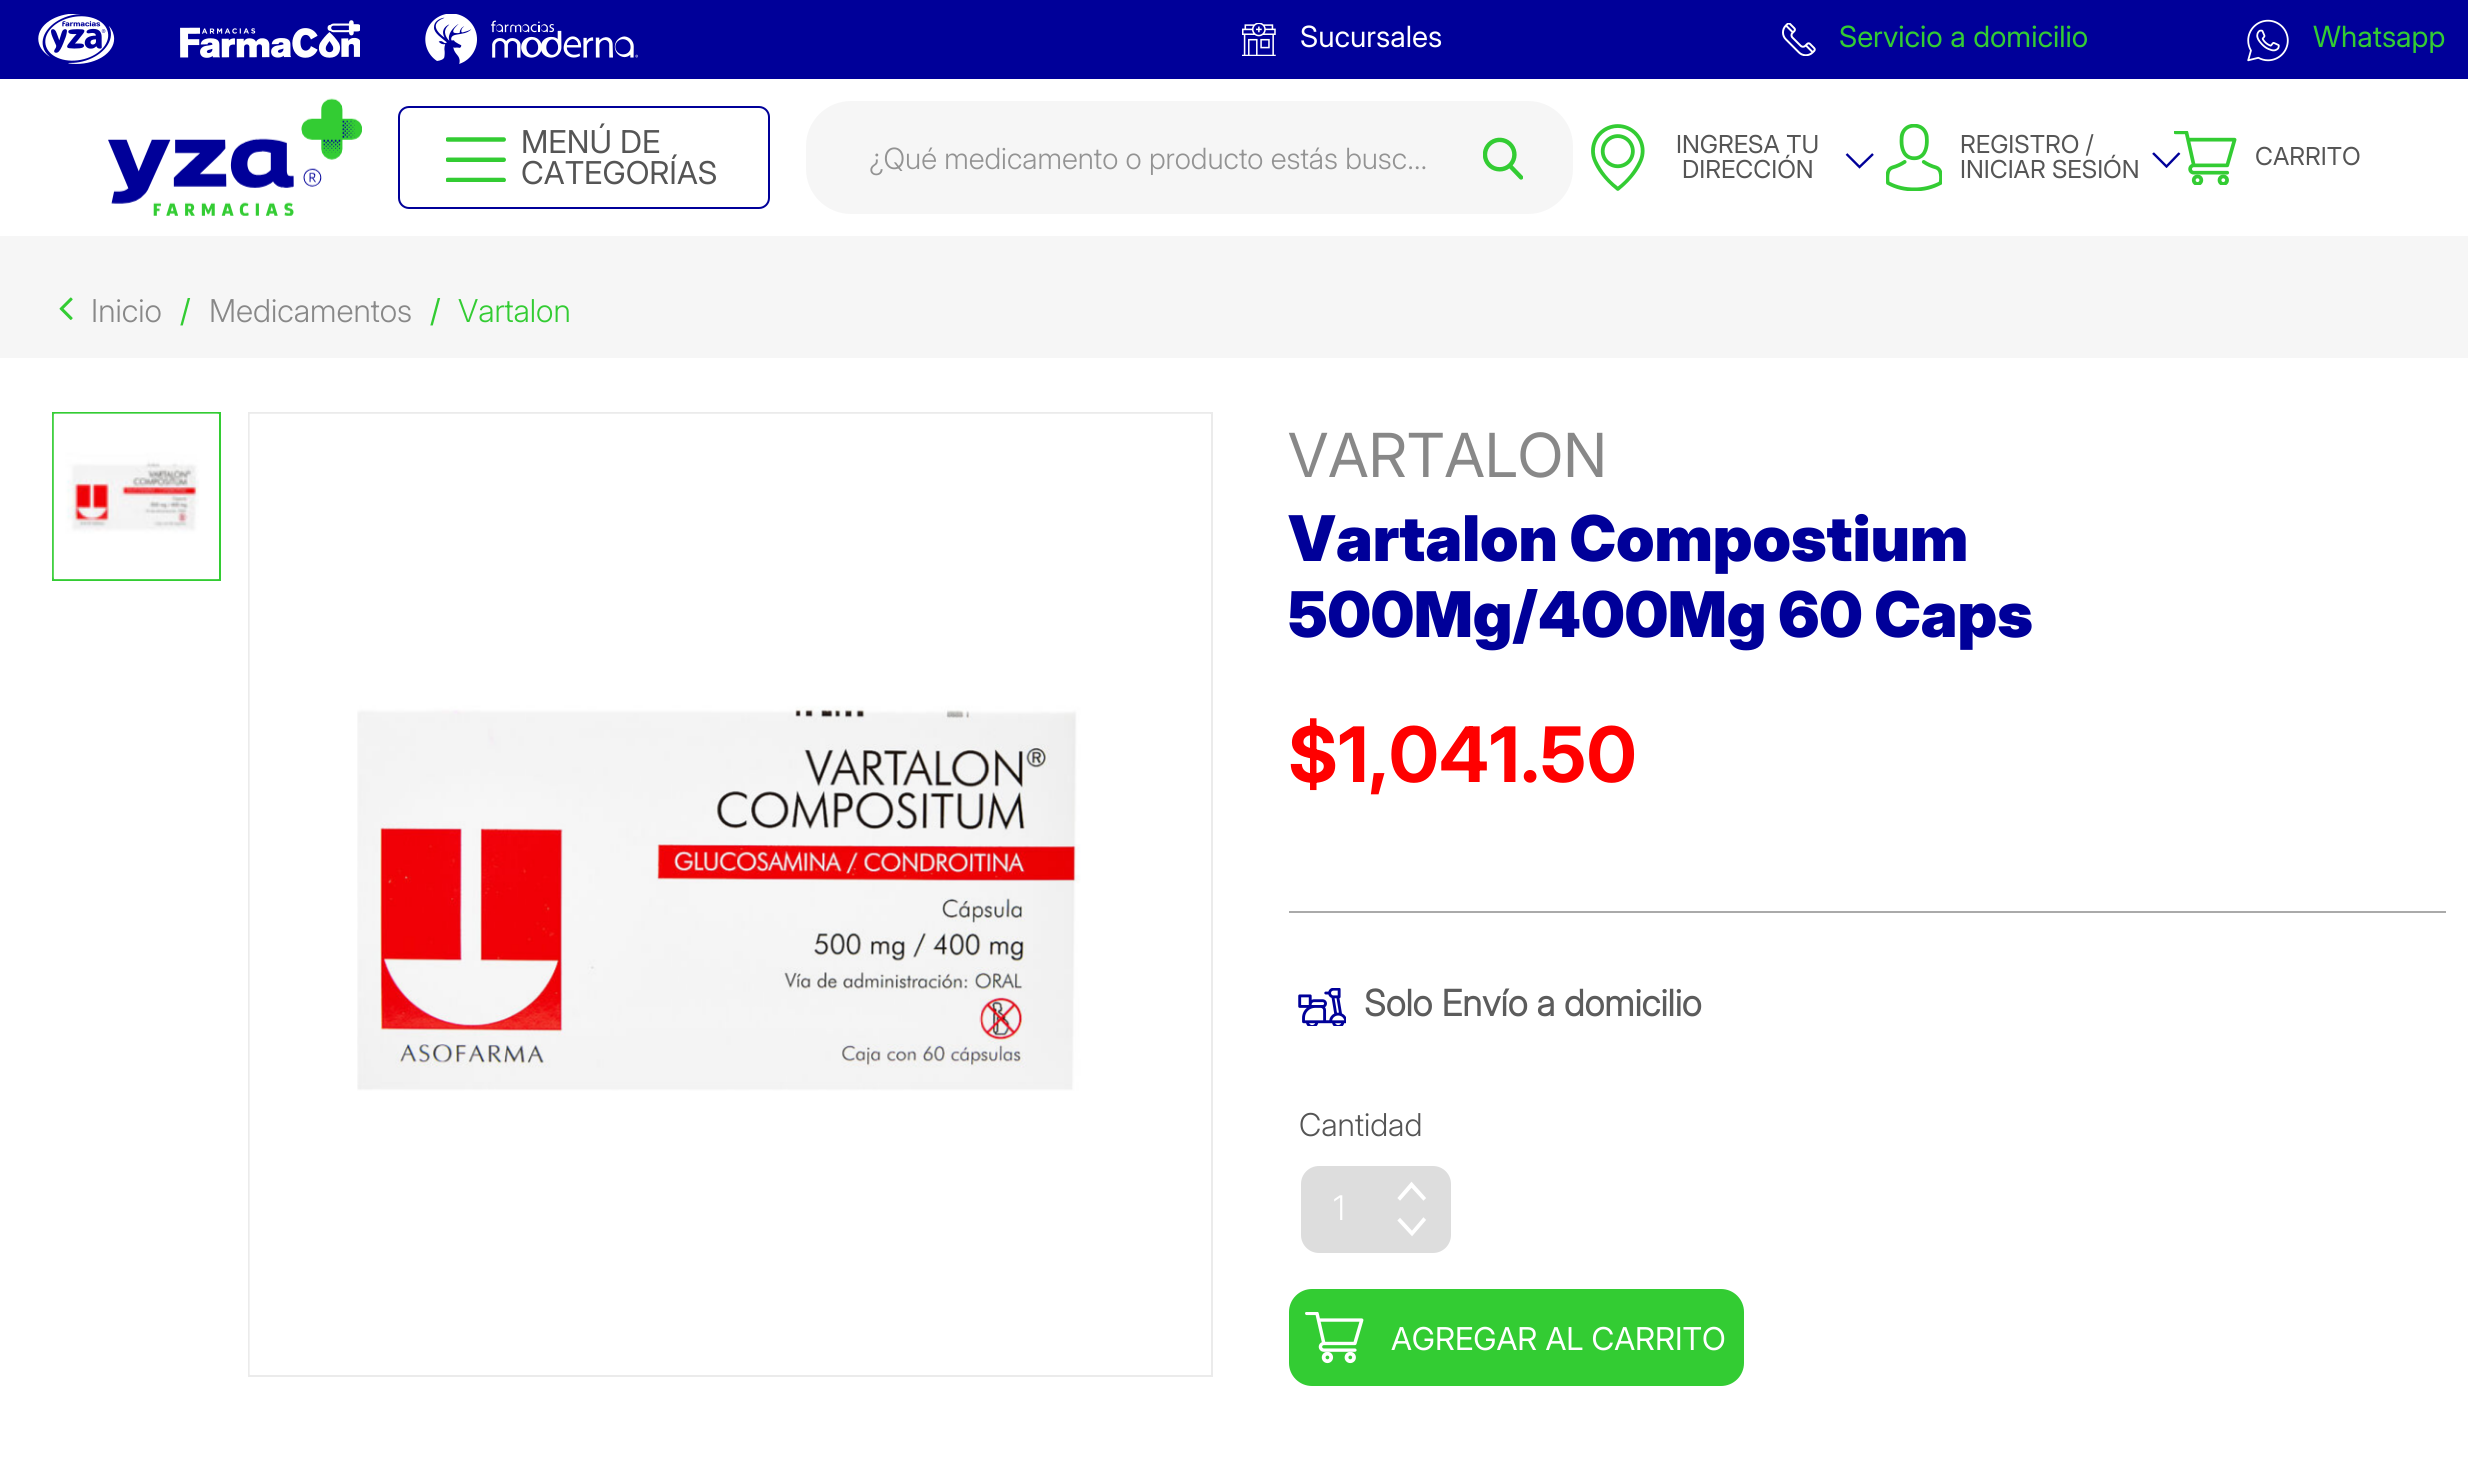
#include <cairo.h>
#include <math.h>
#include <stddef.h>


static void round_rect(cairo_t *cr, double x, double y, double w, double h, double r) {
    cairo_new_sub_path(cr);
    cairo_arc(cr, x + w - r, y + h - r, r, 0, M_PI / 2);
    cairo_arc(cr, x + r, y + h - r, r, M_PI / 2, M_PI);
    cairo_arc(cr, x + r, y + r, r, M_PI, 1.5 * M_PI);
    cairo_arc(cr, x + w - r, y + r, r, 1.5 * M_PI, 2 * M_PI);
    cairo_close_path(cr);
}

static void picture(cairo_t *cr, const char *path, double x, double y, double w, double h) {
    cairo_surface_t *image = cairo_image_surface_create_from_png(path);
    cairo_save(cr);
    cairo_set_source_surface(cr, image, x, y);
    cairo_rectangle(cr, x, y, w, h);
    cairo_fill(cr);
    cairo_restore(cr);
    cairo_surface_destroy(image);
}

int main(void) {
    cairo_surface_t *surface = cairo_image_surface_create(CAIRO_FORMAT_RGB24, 2468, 1475);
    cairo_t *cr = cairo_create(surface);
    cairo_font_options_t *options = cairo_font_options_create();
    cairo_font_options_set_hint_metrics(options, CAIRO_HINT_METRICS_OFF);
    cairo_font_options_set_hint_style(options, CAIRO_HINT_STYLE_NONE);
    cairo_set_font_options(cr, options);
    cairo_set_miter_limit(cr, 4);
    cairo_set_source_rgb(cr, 1, 1, 1);
    cairo_paint(cr);
    cairo_set_source_rgb(cr, 0, 0, 0.6);
    cairo_rectangle(cr, 0, 0, 2468, 79);
    cairo_fill(cr);
    picture(cr, "img1.png", 38, 14, 77, 50);
    picture(cr, "img2.png", 180, 20, 180, 38);
    picture(cr, "img3.png", 425, 14, 213, 50);
    picture(cr, "img4.png", 1242, 23, 34, 33);
    cairo_select_font_face(cr, "Inter", CAIRO_FONT_SLANT_NORMAL, CAIRO_FONT_WEIGHT_NORMAL);
    cairo_set_font_size(cr, 29.25);
    cairo_set_source_rgb(cr, 1, 1, 1);
    cairo_move_to(cr, 1300, 47);
    cairo_show_text(cr, "Sucursales");
    picture(cr, "img5.png", 1782, 23, 34, 33);
    cairo_set_source_rgb(cr, 0.2, 0.8, 0.2);
    cairo_move_to(cr, 1839, 47);
    cairo_show_text(cr, "Servicio a domicilio");
    picture(cr, "img6.png", 2247, 19, 42, 43);
    cairo_move_to(cr, 2313, 47);
    cairo_show_text(cr, "Whatsapp");
    picture(cr, "img7.png", 108, 98, 254, 118);
    round_rect(cr, 399, 107, 370, 101, 10);
    cairo_set_source_rgb(cr, 0, 0, 0.6);
    cairo_stroke(cr);
    picture(cr, "img8.png", 446, 137, 60, 45);
    cairo_set_font_size(cr, 31.5);
    cairo_set_source_rgb(cr, 0.333, 0.333, 0.333);
    cairo_move_to(cr, 521, 153);
    cairo_show_text(cr, "MENÚ DE");
    cairo_move_to(cr, 521, 184);
    cairo_show_text(cr, "CATEGORÍAS");
    cairo_set_source_rgb(cr, 0.961, 0.961, 0.961);
    round_rect(cr, 806, 101, 767, 113, 45);
    cairo_fill(cr);
    cairo_select_font_face(cr, "Inter Light", CAIRO_FONT_SLANT_NORMAL, CAIRO_FONT_WEIGHT_NORMAL);
    cairo_set_font_size(cr, 29.25);
    cairo_set_source_rgb(cr, 0.576, 0.576, 0.576);
    cairo_move_to(cr, 869, 169);
    cairo_show_text(cr, "¿Qué medicamento o producto estás busc…");
    picture(cr, "img9.png", 1483, 137, 40, 43);
    picture(cr, "img10.png", 1591, 124, 54, 67);
    cairo_select_font_face(cr, "Inter", CAIRO_FONT_SLANT_NORMAL, CAIRO_FONT_WEIGHT_NORMAL);
    cairo_set_font_size(cr, 24.75);
    cairo_set_source_rgb(cr, 0.333, 0.333, 0.333);
    cairo_move_to(cr, 1676, 153);
    cairo_show_text(cr, "INGRESA TU");
    cairo_move_to(cr, 1682, 178);
    cairo_show_text(cr, "DIRECCIÓN");
    cairo_new_path(cr);
    cairo_move_to(cr, 1846.5, 154);
    cairo_line_to(cr, 1859.5, 167);
    cairo_line_to(cr, 1873, 154);
    cairo_set_source_rgb(cr, 0, 0, 0.6);
    cairo_set_line_width(cr, 2.4);
    cairo_stroke(cr);
    picture(cr, "img11.png", 1886, 124, 56, 67);
    cairo_set_source_rgb(cr, 0.333, 0.333, 0.333);
    cairo_move_to(cr, 1960, 153);
    cairo_show_text(cr, "REGISTRO /");
    cairo_move_to(cr, 1960, 178);
    cairo_show_text(cr, "INICIAR SESIÓN");
    cairo_save(cr);
    cairo_new_path(cr);
    cairo_move_to(cr, 2192.5, 152.5);
    cairo_line_to(cr, 2192.5, 168);
    cairo_line_to(cr, 2139, 168);
    cairo_line_to(cr, 2139, 152.5);
    cairo_close_path(cr);
    cairo_clip(cr);
    cairo_new_path(cr);
    cairo_move_to(cr, 2153, 153);
    cairo_line_to(cr, 2166.5, 166.5);
    cairo_line_to(cr, 2179.5, 153);
    cairo_set_source_rgb(cr, 0, 0, 0.6);
    cairo_stroke(cr);
    cairo_restore(cr);
    picture(cr, "img12.png", 2174, 131, 63, 54);
    cairo_move_to(cr, 2255, 165);
    cairo_show_text(cr, "CARRITO");
    cairo_set_source_rgb(cr, 0.961, 0.961, 0.961);
    cairo_rectangle(cr, 0, 236, 2468, 122);
    cairo_fill(cr);
    picture(cr, "img13.png", 59, 297, 14, 23);
    cairo_select_font_face(cr, "Inter Light", CAIRO_FONT_SLANT_NORMAL, CAIRO_FONT_WEIGHT_NORMAL);
    cairo_set_font_size(cr, 31.5);
    cairo_set_source_rgb(cr, 0.533, 0.533, 0.533);
    cairo_move_to(cr, 91, 322);
    cairo_show_text(cr, "Inicio");
    cairo_select_font_face(cr, "Inter", CAIRO_FONT_SLANT_NORMAL, CAIRO_FONT_WEIGHT_NORMAL);
    cairo_set_source_rgb(cr, 0.2, 0.8, 0.2);
    cairo_move_to(cr, 180, 322);
    cairo_show_text(cr, "/");
    cairo_select_font_face(cr, "Inter Light", CAIRO_FONT_SLANT_NORMAL, CAIRO_FONT_WEIGHT_NORMAL);
    cairo_set_source_rgb(cr, 0.533, 0.533, 0.533);
    cairo_move_to(cr, 209, 322);
    cairo_show_text(cr, "Medicamentos");
    cairo_select_font_face(cr, "Inter", CAIRO_FONT_SLANT_NORMAL, CAIRO_FONT_WEIGHT_NORMAL);
    cairo_set_source_rgb(cr, 0.2, 0.8, 0.2);
    cairo_move_to(cr, 430, 322);
    cairo_show_text(cr, "/");
    cairo_select_font_face(cr, "Inter Light", CAIRO_FONT_SLANT_NORMAL, CAIRO_FONT_WEIGHT_NORMAL);
    cairo_move_to(cr, 458, 322);
    cairo_show_text(cr, "Vartalon");
    cairo_rectangle(cr, 53, 413, 167, 167);
    cairo_set_line_width(cr, 2);
    cairo_stroke(cr);
    picture(cr, "img14.png", 52, 413, 167, 167);
    cairo_rectangle(cr, 249, 413, 963, 963);
    cairo_set_source_rgb(cr, 0.918, 0.918, 0.918);
    cairo_stroke(cr);
    picture(cr, "img15.png", 249, 413, 961, 962);
    cairo_select_font_face(cr, "Inter", CAIRO_FONT_SLANT_NORMAL, CAIRO_FONT_WEIGHT_NORMAL);
    cairo_set_font_size(cr, 60.75);
    cairo_set_source_rgb(cr, 0.533, 0.533, 0.533);
    cairo_move_to(cr, 1288, 477);
    cairo_show_text(cr, "VARTALON");
    cairo_select_font_face(cr, "Inter Black", CAIRO_FONT_SLANT_NORMAL, CAIRO_FONT_WEIGHT_NORMAL);
    cairo_set_font_size(cr, 63);
    cairo_set_source_rgb(cr, 0, 0, 0.6);
    cairo_move_to(cr, 1288, 561);
    cairo_show_text(cr, "Vartalon Compostium");
    cairo_move_to(cr, 1288, 637);
    cairo_show_text(cr, "500Mg/400Mg 60 Caps");
    cairo_select_font_face(cr, "Inter", CAIRO_FONT_SLANT_NORMAL, CAIRO_FONT_WEIGHT_BOLD);
    cairo_set_font_size(cr, 76.5);
    cairo_set_source_rgb(cr, 1, 0, 0);
    cairo_move_to(cr, 1288, 782);
    cairo_show_text(cr, "$1,041.50");
    cairo_set_source_rgb(cr, 0.667, 0.667, 0.667);
    cairo_rectangle(cr, 1289, 911, 1157, 2);
    cairo_fill(cr);
    picture(cr, "img16.png", 1298, 988, 48, 38);
    cairo_select_font_face(cr, "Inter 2", CAIRO_FONT_SLANT_NORMAL, CAIRO_FONT_WEIGHT_BOLD);
    cairo_set_font_size(cr, 36);
    cairo_set_source_rgb(cr, 0.361, 0.361, 0.361);
    cairo_move_to(cr, 1364, 1016);
    cairo_show_text(cr, "Solo Envío a domicilio");
    cairo_select_font_face(cr, "Inter Light", CAIRO_FONT_SLANT_NORMAL, CAIRO_FONT_WEIGHT_NORMAL);
    cairo_set_font_size(cr, 31.5);
    cairo_set_source_rgb(cr, 0.333, 0.333, 0.333);
    cairo_move_to(cr, 1299, 1136);
    cairo_show_text(cr, "Cantidad");
    cairo_set_source_rgb(cr, 0.867, 0.867, 0.867);
    round_rect(cr, 1301, 1166, 150, 87, 18);
    cairo_fill(cr);
    cairo_new_path(cr);
    cairo_move_to(cr, 1411.5, 1186);
    cairo_line_to(cr, 1400, 1199);
    cairo_line_to(cr, 1399, 1198);
    cairo_line_to(cr, 1411.5, 1183.5);
    cairo_line_to(cr, 1424.5, 1198);
    cairo_line_to(cr, 1423.5, 1199);
    cairo_close_path(cr);
    cairo_move_to(cr, 1412, 1232.5);
    cairo_line_to(cr, 1423.5, 1219);
    cairo_line_to(cr, 1424.5, 1220);
    cairo_line_to(cr, 1412, 1234.5);
    cairo_line_to(cr, 1399, 1220.5);
    cairo_line_to(cr, 1400, 1219.5);
    cairo_close_path(cr);
    cairo_set_source_rgb(cr, 1, 1, 1);
    cairo_set_line_width(cr, 2.4);
    cairo_stroke(cr);
    cairo_set_font_size(cr, 34);
    cairo_move_to(cr, 1333, 1220);
    cairo_show_text(cr, "1");
    cairo_set_source_rgb(cr, 0.2, 0.8, 0.2);
    round_rect(cr, 1290, 1290, 453, 95, 22);
    cairo_fill_preserve(cr);
    cairo_set_line_width(cr, 2);
    cairo_stroke(cr);
    picture(cr, "img17.png", 1305, 1312, 59, 52);
    cairo_select_font_face(cr, "Inter", CAIRO_FONT_SLANT_NORMAL, CAIRO_FONT_WEIGHT_NORMAL);
    cairo_set_font_size(cr, 31.5);
    cairo_set_source_rgb(cr, 1, 1, 1);
    cairo_move_to(cr, 1391, 1350);
    cairo_show_text(cr, "AGREGAR AL CARRITO");
    cairo_surface_write_to_png(surface, "page.png");
    cairo_font_options_destroy(options);
    cairo_destroy(cr);
    cairo_surface_destroy(surface);
    return 0;
}
